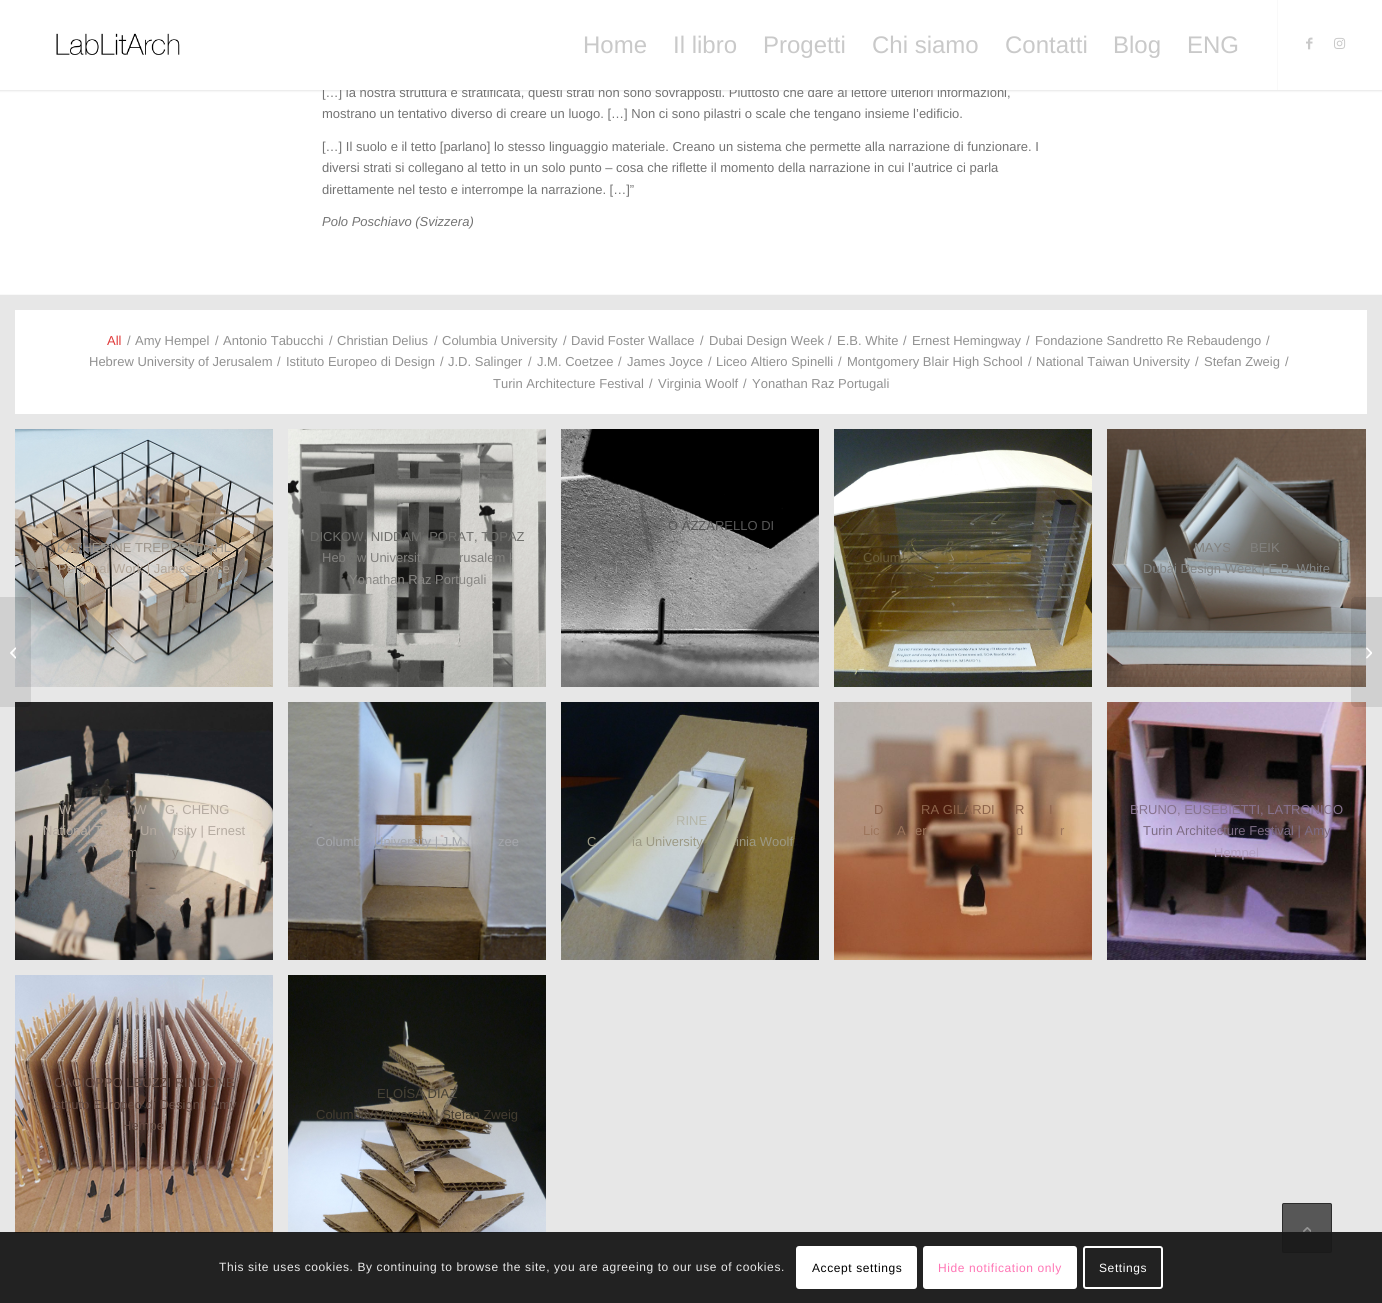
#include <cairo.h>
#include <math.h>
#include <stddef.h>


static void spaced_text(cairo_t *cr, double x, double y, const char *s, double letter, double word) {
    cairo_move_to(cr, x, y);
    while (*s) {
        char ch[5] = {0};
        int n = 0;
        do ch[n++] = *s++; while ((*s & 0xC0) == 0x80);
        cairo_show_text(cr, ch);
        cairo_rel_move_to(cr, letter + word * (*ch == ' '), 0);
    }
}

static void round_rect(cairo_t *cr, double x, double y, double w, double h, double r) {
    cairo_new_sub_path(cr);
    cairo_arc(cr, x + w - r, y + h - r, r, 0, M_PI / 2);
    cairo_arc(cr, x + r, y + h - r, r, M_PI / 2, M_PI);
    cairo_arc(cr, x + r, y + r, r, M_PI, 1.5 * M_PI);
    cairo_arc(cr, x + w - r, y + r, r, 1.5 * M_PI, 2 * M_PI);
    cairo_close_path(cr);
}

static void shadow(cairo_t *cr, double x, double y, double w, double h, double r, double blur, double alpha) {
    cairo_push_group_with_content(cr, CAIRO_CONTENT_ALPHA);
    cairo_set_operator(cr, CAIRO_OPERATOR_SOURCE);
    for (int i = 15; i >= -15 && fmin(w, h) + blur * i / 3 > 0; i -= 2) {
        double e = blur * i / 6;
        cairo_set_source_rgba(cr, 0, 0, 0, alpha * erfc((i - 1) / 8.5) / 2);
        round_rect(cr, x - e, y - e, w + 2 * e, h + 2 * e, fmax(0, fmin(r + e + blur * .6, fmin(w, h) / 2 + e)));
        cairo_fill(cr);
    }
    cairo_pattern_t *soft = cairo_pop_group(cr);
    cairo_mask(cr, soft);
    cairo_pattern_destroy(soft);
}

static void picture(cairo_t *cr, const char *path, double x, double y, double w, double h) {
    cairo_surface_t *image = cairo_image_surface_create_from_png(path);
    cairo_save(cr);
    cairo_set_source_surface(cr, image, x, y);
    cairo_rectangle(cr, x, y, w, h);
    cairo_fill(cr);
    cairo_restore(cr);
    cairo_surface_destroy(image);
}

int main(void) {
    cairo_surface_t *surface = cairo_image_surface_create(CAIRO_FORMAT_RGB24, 1382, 1303);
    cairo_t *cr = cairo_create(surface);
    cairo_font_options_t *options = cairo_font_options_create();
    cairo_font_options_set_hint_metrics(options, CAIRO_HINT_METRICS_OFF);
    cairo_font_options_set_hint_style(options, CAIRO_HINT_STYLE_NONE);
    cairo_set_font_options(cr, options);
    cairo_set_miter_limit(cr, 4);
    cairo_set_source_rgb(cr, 1, 1, 1);
    cairo_paint(cr);
    cairo_set_source_rgb(cr, 0, 0, 0);
    shadow(cr, -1, -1, 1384, 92, 0, 1, 0.1);
    cairo_select_font_face(cr, "Liberation Sans", CAIRO_FONT_SLANT_NORMAL, CAIRO_FONT_WEIGHT_NORMAL);
    cairo_set_font_size(cr, 13);
    cairo_set_source_rgb(cr, 0.451, 0.451, 0.451);
    cairo_move_to(cr, 322, 97);
    cairo_show_text(cr, "[…] la nostra struttura è stratificata, questi strati non sono sovrapposti. Piuttosto che dare al lettore ulteriori informazioni,");
    cairo_set_source_rgb(cr, 1, 1, 1);
    cairo_rectangle(cr, 0, 0, 1382, 90);
    cairo_fill(cr);
    picture(cr, "img1.png", 56, 33, 124, 22);
    cairo_set_source_rgb(cr, 0.973, 0.973, 0.973);
    cairo_rectangle(cr, 1277, 0, 1, 90);
    cairo_fill(cr);
    cairo_set_font_size(cr, 24);
    cairo_set_source_rgb(cr, 0.788, 0.788, 0.788);
    cairo_move_to(cr, 583, 53);
    cairo_show_text(cr, "Home");
    cairo_move_to(cr, 673, 53);
    cairo_show_text(cr, "Il libro");
    cairo_move_to(cr, 763, 53);
    cairo_show_text(cr, "Progetti");
    cairo_move_to(cr, 872, 53);
    cairo_show_text(cr, "Chi siamo");
    cairo_move_to(cr, 1005, 53);
    cairo_show_text(cr, "Contatti");
    cairo_move_to(cr, 1113, 53);
    cairo_show_text(cr, "Blog");
    cairo_move_to(cr, 1187, 53);
    cairo_show_text(cr, "ENG");
    picture(cr, "img2.png", 1306, 37, 7, 13);
    picture(cr, "img3.png", 1334, 37, 12, 12);
    cairo_set_source_rgb(cr, 0.906, 0.906, 0.906);
    cairo_rectangle(cr, 0, 295, 1382, 1008);
    cairo_fill(cr);
    picture(cr, "img5.png", 15, 429, 258, 258);
    picture(cr, "img10.png", 15, 702, 258, 258);
    cairo_set_source_rgba(cr, 0, 0, 0, 0.1);
    cairo_new_path(cr);
    cairo_move_to(cr, 0, 597);
    cairo_line_to(cr, 27, 597);
    cairo_curve_to(cr, 29, 597, 31, 599, 31, 601);
    cairo_line_to(cr, 31, 703);
    cairo_curve_to(cr, 31, 705, 29, 707, 27, 707);
    cairo_line_to(cr, 0, 707);
    cairo_close_path(cr);
    cairo_fill(cr);
    picture(cr, "img4.png", 10, 647, 6, 12);
    cairo_set_font_size(cr, 13);
    cairo_set_source_rgb(cr, 0.451, 0.451, 0.451);
    cairo_move_to(cr, 322, 118);
    cairo_show_text(cr, "mostrano un tentativo diverso di creare un luogo. […] Non ci sono pilastri o scale che tengano insieme l’edificio.");
    cairo_move_to(cr, 322, 151);
    cairo_show_text(cr, "[…] Il suolo e il tetto [parlano] lo stesso linguaggio materiale. Creano un sistema che permette alla narrazione di funzionare. I");
    cairo_move_to(cr, 322, 172);
    cairo_show_text(cr, "diversi strati si collegano al tetto in un solo punto – cosa che riflette il momento della narrazione in cui l’autrice ci parla");
    cairo_move_to(cr, 322, 194);
    cairo_show_text(cr, "direttamente nel testo e interrompe la narrazione. […]”");
    cairo_select_font_face(cr, "Liberation Sans", CAIRO_FONT_SLANT_ITALIC, CAIRO_FONT_WEIGHT_NORMAL);
    cairo_move_to(cr, 322, 226);
    cairo_show_text(cr, "Polo Poschiavo (Svizzera)");
    cairo_set_source_rgb(cr, 0.973, 0.973, 0.973);
    cairo_rectangle(cr, 0, 294, 1382, 1);
    cairo_fill(cr);
    cairo_set_source_rgb(cr, 1, 1, 1);
    cairo_rectangle(cr, 15, 310, 1352, 104);
    cairo_fill(cr);
    cairo_select_font_face(cr, "Liberation Sans", CAIRO_FONT_SLANT_NORMAL, CAIRO_FONT_WEIGHT_NORMAL);
    cairo_set_source_rgb(cr, 0.878, 0.227, 0.227);
    cairo_move_to(cr, 107, 345);
    cairo_show_text(cr, "All");
    cairo_set_source_rgb(cr, 0.569, 0.569, 0.569);
    cairo_move_to(cr, 127, 345);
    cairo_show_text(cr, "/");
    cairo_move_to(cr, 135, 345);
    cairo_show_text(cr, "Amy Hempel");
    cairo_move_to(cr, 215, 345);
    cairo_show_text(cr, "/");
    cairo_move_to(cr, 223, 345);
    cairo_show_text(cr, "Antonio Tabucchi");
    cairo_move_to(cr, 329, 345);
    cairo_show_text(cr, "/");
    cairo_move_to(cr, 337, 345);
    cairo_show_text(cr, "Christian Delius");
    cairo_move_to(cr, 434, 345);
    cairo_show_text(cr, "/");
    cairo_move_to(cr, 442, 345);
    cairo_show_text(cr, "Columbia University");
    cairo_move_to(cr, 563, 345);
    cairo_show_text(cr, "/");
    cairo_move_to(cr, 571, 345);
    cairo_show_text(cr, "David Foster Wallace");
    cairo_move_to(cr, 700, 345);
    cairo_show_text(cr, "/");
    cairo_move_to(cr, 709, 345);
    cairo_show_text(cr, "Dubai Design Week");
    cairo_move_to(cr, 828, 345);
    cairo_show_text(cr, "/");
    cairo_move_to(cr, 837, 345);
    cairo_show_text(cr, "E.B. White");
    cairo_move_to(cr, 903, 345);
    cairo_show_text(cr, "/");
    cairo_move_to(cr, 912, 345);
    cairo_show_text(cr, "Ernest Hemingway");
    cairo_move_to(cr, 1026, 345);
    cairo_show_text(cr, "/");
    cairo_move_to(cr, 1035, 345);
    cairo_show_text(cr, "Fondazione Sandretto Re Rebaudengo");
    cairo_move_to(cr, 1266, 345);
    cairo_show_text(cr, "/");
    cairo_move_to(cr, 89, 366);
    cairo_show_text(cr, "Hebrew University of Jerusalem");
    cairo_move_to(cr, 277, 366);
    cairo_show_text(cr, "/");
    cairo_move_to(cr, 286, 366);
    cairo_show_text(cr, "Istituto Europeo di Design");
    cairo_move_to(cr, 440, 366);
    cairo_show_text(cr, "/");
    cairo_move_to(cr, 448, 366);
    cairo_show_text(cr, "J.D. Salinger");
    cairo_move_to(cr, 528, 366);
    cairo_show_text(cr, "/");
    cairo_move_to(cr, 537, 366);
    cairo_show_text(cr, "J.M. Coetzee");
    cairo_move_to(cr, 618, 366);
    cairo_show_text(cr, "/");
    cairo_move_to(cr, 627, 366);
    cairo_show_text(cr, "James Joyce");
    cairo_move_to(cr, 708, 366);
    cairo_show_text(cr, "/");
    cairo_move_to(cr, 716, 366);
    cairo_show_text(cr, "Liceo Altiero Spinelli");
    cairo_move_to(cr, 838, 366);
    cairo_show_text(cr, "/");
    cairo_move_to(cr, 847, 366);
    cairo_show_text(cr, "Montgomery Blair High School");
    cairo_move_to(cr, 1028, 366);
    cairo_show_text(cr, "/");
    cairo_move_to(cr, 1036, 366);
    cairo_show_text(cr, "National Taiwan University");
    cairo_move_to(cr, 1195, 366);
    cairo_show_text(cr, "/");
    cairo_move_to(cr, 1204, 366);
    cairo_show_text(cr, "Stefan Zweig");
    cairo_move_to(cr, 1285, 366);
    cairo_show_text(cr, "/");
    cairo_move_to(cr, 493, 388);
    cairo_show_text(cr, "Turin Architecture Festival");
    cairo_move_to(cr, 649, 388);
    cairo_show_text(cr, "/");
    cairo_move_to(cr, 658, 388);
    cairo_show_text(cr, "Virginia Woolf");
    cairo_move_to(cr, 743, 388);
    cairo_show_text(cr, "/");
    cairo_move_to(cr, 752, 388);
    cairo_show_text(cr, "Yonathan Raz Portugali");
    cairo_set_source_rgb(cr, 0.612, 0.58, 0.541);
    cairo_move_to(cr, 57, 552);
    cairo_show_text(cr, "KATHERINE TREPPENDAHL");
    cairo_set_source_rgb(cr, 0.698, 0.651, 0.6);
    cairo_move_to(cr, 58, 573);
    cairo_show_text(cr, "Personal Work | James Joyce");
    picture(cr, "img6.png", 288, 429, 258, 258);
    cairo_set_source_rgb(cr, 0.435, 0.435, 0.424);
    cairo_move_to(cr, 310, 541);
    cairo_show_text(cr, "DICKOW, NIDDAM, PORAT, TOPAZ");
    cairo_set_source_rgb(cr, 0.51, 0.506, 0.494);
    cairo_move_to(cr, 322, 562);
    cairo_show_text(cr, "Heb");
    cairo_move_to(cr, 357, 562);
    cairo_show_text(cr, "w Universit");
    cairo_move_to(cr, 459, 562);
    cairo_show_text(cr, "rusalem |");
    cairo_set_source_rgb(cr, 0.537, 0.533, 0.522);
    cairo_move_to(cr, 349, 584);
    cairo_show_text(cr, "Yonathan Raz Portugali");
    picture(cr, "img7.png", 561, 429, 258, 258);
    cairo_set_source_rgb(cr, 0.341, 0.341, 0.341);
    cairo_move_to(cr, 668, 530);
    cairo_show_text(cr, "O AZZARELLO DI");
    cairo_set_source_rgb(cr, 0.569, 0.569, 0.569);
    cairo_move_to(cr, 615, 573);
    cairo_show_text(cr, "i");
    picture(cr, "img8.png", 834, 429, 258, 258);
    cairo_set_source_rgb(cr, 0.42, 0.369, 0.231);
    cairo_move_to(cr, 863, 562);
    cairo_show_text(cr, "Colum");
    picture(cr, "img9.png", 1107, 429, 259, 258);
    cairo_set_source_rgb(cr, 0.51, 0.506, 0.494);
    cairo_move_to(cr, 1194, 552);
    cairo_show_text(cr, "MAYS");
    cairo_move_to(cr, 1250, 552);
    cairo_show_text(cr, "BEIK");
    cairo_set_source_rgb(cr, 0.514, 0.525, 0.529);
    cairo_move_to(cr, 1143, 573);
    cairo_show_text(cr, "Dubai Design Week | E.B. White");
    cairo_set_source_rgb(cr, 0.71, 0.671, 0.631);
    cairo_move_to(cr, 59, 814);
    cairo_show_text(cr, "W");
    cairo_move_to(cr, 100, 814);
    cairo_show_text(cr, ",");
    cairo_move_to(cr, 127, 814);
    cairo_show_text(cr, ", W");
    cairo_move_to(cr, 165, 814);
    cairo_show_text(cr, "G, CHENG");
    cairo_move_to(cr, 43, 835);
    cairo_show_text(cr, "National T");
    cairo_move_to(cr, 140, 835);
    cairo_show_text(cr, "Un");
    cairo_move_to(cr, 173, 835);
    cairo_show_text(cr, "rsity | Ernest");
    cairo_set_source_rgb(cr, 0.565, 0.537, 0.506);
    cairo_move_to(cr, 127, 857);
    cairo_show_text(cr, "m");
    cairo_move_to(cr, 172, 857);
    cairo_show_text(cr, "y");
    picture(cr, "img11.png", 288, 702, 258, 258);
    cairo_set_source_rgb(cr, 0.643, 0.651, 0.671);
    cairo_move_to(cr, 316, 846);
    cairo_show_text(cr, "Columb");
    cairo_move_to(cr, 374, 846);
    cairo_show_text(cr, "University | J.M.");
    cairo_move_to(cr, 498, 846);
    cairo_show_text(cr, "zee");
    picture(cr, "img12.png", 561, 702, 258, 258);
    cairo_set_source_rgb(cr, 0.706, 0.71, 0.659);
    cairo_move_to(cr, 676, 825);
    cairo_show_text(cr, "RINE");
    cairo_set_source_rgb(cr, 0.612, 0.6, 0.518);
    cairo_move_to(cr, 587, 846);
    cairo_show_text(cr, "C");
    cairo_move_to(cr, 632, 846);
    cairo_show_text(cr, "ia University");
    cairo_move_to(cr, 736, 846);
    cairo_show_text(cr, "inia Woolf");
    picture(cr, "img13.png", 834, 702, 258, 258);
    cairo_set_source_rgb(cr, 0.553, 0.392, 0.294);
    cairo_move_to(cr, 874, 814);
    cairo_show_text(cr, "D");
    cairo_move_to(cr, 921, 814);
    cairo_show_text(cr, "RA GILARDI");
    cairo_move_to(cr, 1015, 814);
    cairo_show_text(cr, "R");
    cairo_move_to(cr, 1049, 814);
    cairo_show_text(cr, "I");
    cairo_set_source_rgb(cr, 0.616, 0.459, 0.357);
    cairo_move_to(cr, 863, 835);
    cairo_show_text(cr, "Lic");
    cairo_move_to(cr, 897, 835);
    cairo_show_text(cr, "A");
    cairo_move_to(cr, 915, 835);
    cairo_show_text(cr, "er");
    cairo_move_to(cr, 1016, 835);
    cairo_show_text(cr, "d");
    cairo_move_to(cr, 1060, 835);
    cairo_show_text(cr, "r");
    picture(cr, "img14.png", 1107, 702, 259, 258);
    cairo_set_source_rgb(cr, 0.529, 0.451, 0.557);
    cairo_move_to(cr, 1130, 814);
    cairo_show_text(cr, "BRUNO, EUSEBIETTI, LATRONICO");
    cairo_set_source_rgb(cr, 0.49, 0.424, 0.518);
    cairo_move_to(cr, 1143, 835);
    cairo_show_text(cr, "Turin Architecture Festival | Amy");
    cairo_set_source_rgb(cr, 0.69, 0.616, 0.753);
    cairo_move_to(cr, 1214, 857);
    cairo_show_text(cr, "Hempel");
    picture(cr, "img15.png", 15, 975, 258, 258);
    cairo_set_source_rgb(cr, 0.396, 0.294, 0.259);
    cairo_move_to(cr, 54, 1087);
    cairo_show_text(cr, "CACIOPPO LEUZZI RINDONE");
    cairo_move_to(cr, 51, 1109);
    cairo_show_text(cr, "Istituto Europeo di Design | Amy");
    cairo_move_to(cr, 122, 1130);
    cairo_show_text(cr, "Hempel");
    picture(cr, "img16.png", 288, 975, 258, 258);
    cairo_set_source_rgb(cr, 0.278, 0.259, 0.212);
    cairo_move_to(cr, 377, 1098);
    cairo_show_text(cr, "ELOÍSA DÍAZ");
    cairo_set_source_rgb(cr, 0.263, 0.235, 0.188);
    cairo_move_to(cr, 316, 1119);
    cairo_show_text(cr, "Columbia University | Stefan Zweig");
    cairo_set_source_rgba(cr, 0, 0, 0, 0.1);
    cairo_new_path(cr);
    cairo_move_to(cr, 1355, 597);
    cairo_line_to(cr, 1382, 597);
    cairo_line_to(cr, 1382, 707);
    cairo_line_to(cr, 1355, 707);
    cairo_curve_to(cr, 1353, 707, 1351, 705, 1351, 703);
    cairo_line_to(cr, 1351, 601);
    cairo_curve_to(cr, 1351, 599, 1353, 597, 1355, 597);
    cairo_close_path(cr);
    cairo_fill(cr);
    picture(cr, "img17.png", 1366, 647, 6, 12);
    cairo_set_source_rgba(cr, 0, 0, 0, 0.85);
    cairo_rectangle(cr, 0, 1232, 1382, 71);
    cairo_fill(cr);
    cairo_set_source_rgba(cr, 0.102, 0.102, 0.102, 0.7);
    round_rect(cr, 1282, 1203, 50, 50, 2);
    cairo_fill(cr);
    round_rect(cr, 1282.5, 1203.5, 49, 49, 1.5);
    cairo_set_line_width(cr, 1);
    cairo_stroke(cr);
    picture(cr, "img18.png", 1303, 1227, 8, 5);
    cairo_set_font_size(cr, 12);
    cairo_set_source_rgb(cr, 0.914, 0.914, 0.914);
    spaced_text(cr, 219, 1271, "This site uses cookies. By continuing to browse the site, you are agreeing to our use of cookies.", 0.6, 0);
    cairo_set_source_rgb(cr, 1, 1, 1);
    round_rect(cr, 796, 1246, 121, 43, 3);
    cairo_fill(cr);
    cairo_set_source_rgb(cr, 0, 0, 0);
    spaced_text(cr, 812, 1272, "Accept settings", 0.6, 0);
    cairo_set_source_rgb(cr, 1, 1, 1);
    round_rect(cr, 924, 1247, 152, 41, 2);
    cairo_fill_preserve(cr);
    cairo_set_line_width(cr, 2);
    cairo_stroke(cr);
    cairo_set_source_rgb(cr, 1, 0.459, 0.71);
    spaced_text(cr, 938, 1272, "Hide notification only", 0.6, 0);
    round_rect(cr, 1084, 1247, 78, 41, 2);
    cairo_set_source_rgb(cr, 1, 1, 1);
    cairo_stroke(cr);
    spaced_text(cr, 1099, 1272, "Settings", 0.6, 0);
    cairo_surface_write_to_png(surface, "page.png");
    cairo_font_options_destroy(options);
    cairo_destroy(cr);
    cairo_surface_destroy(surface);
    return 0;
}
